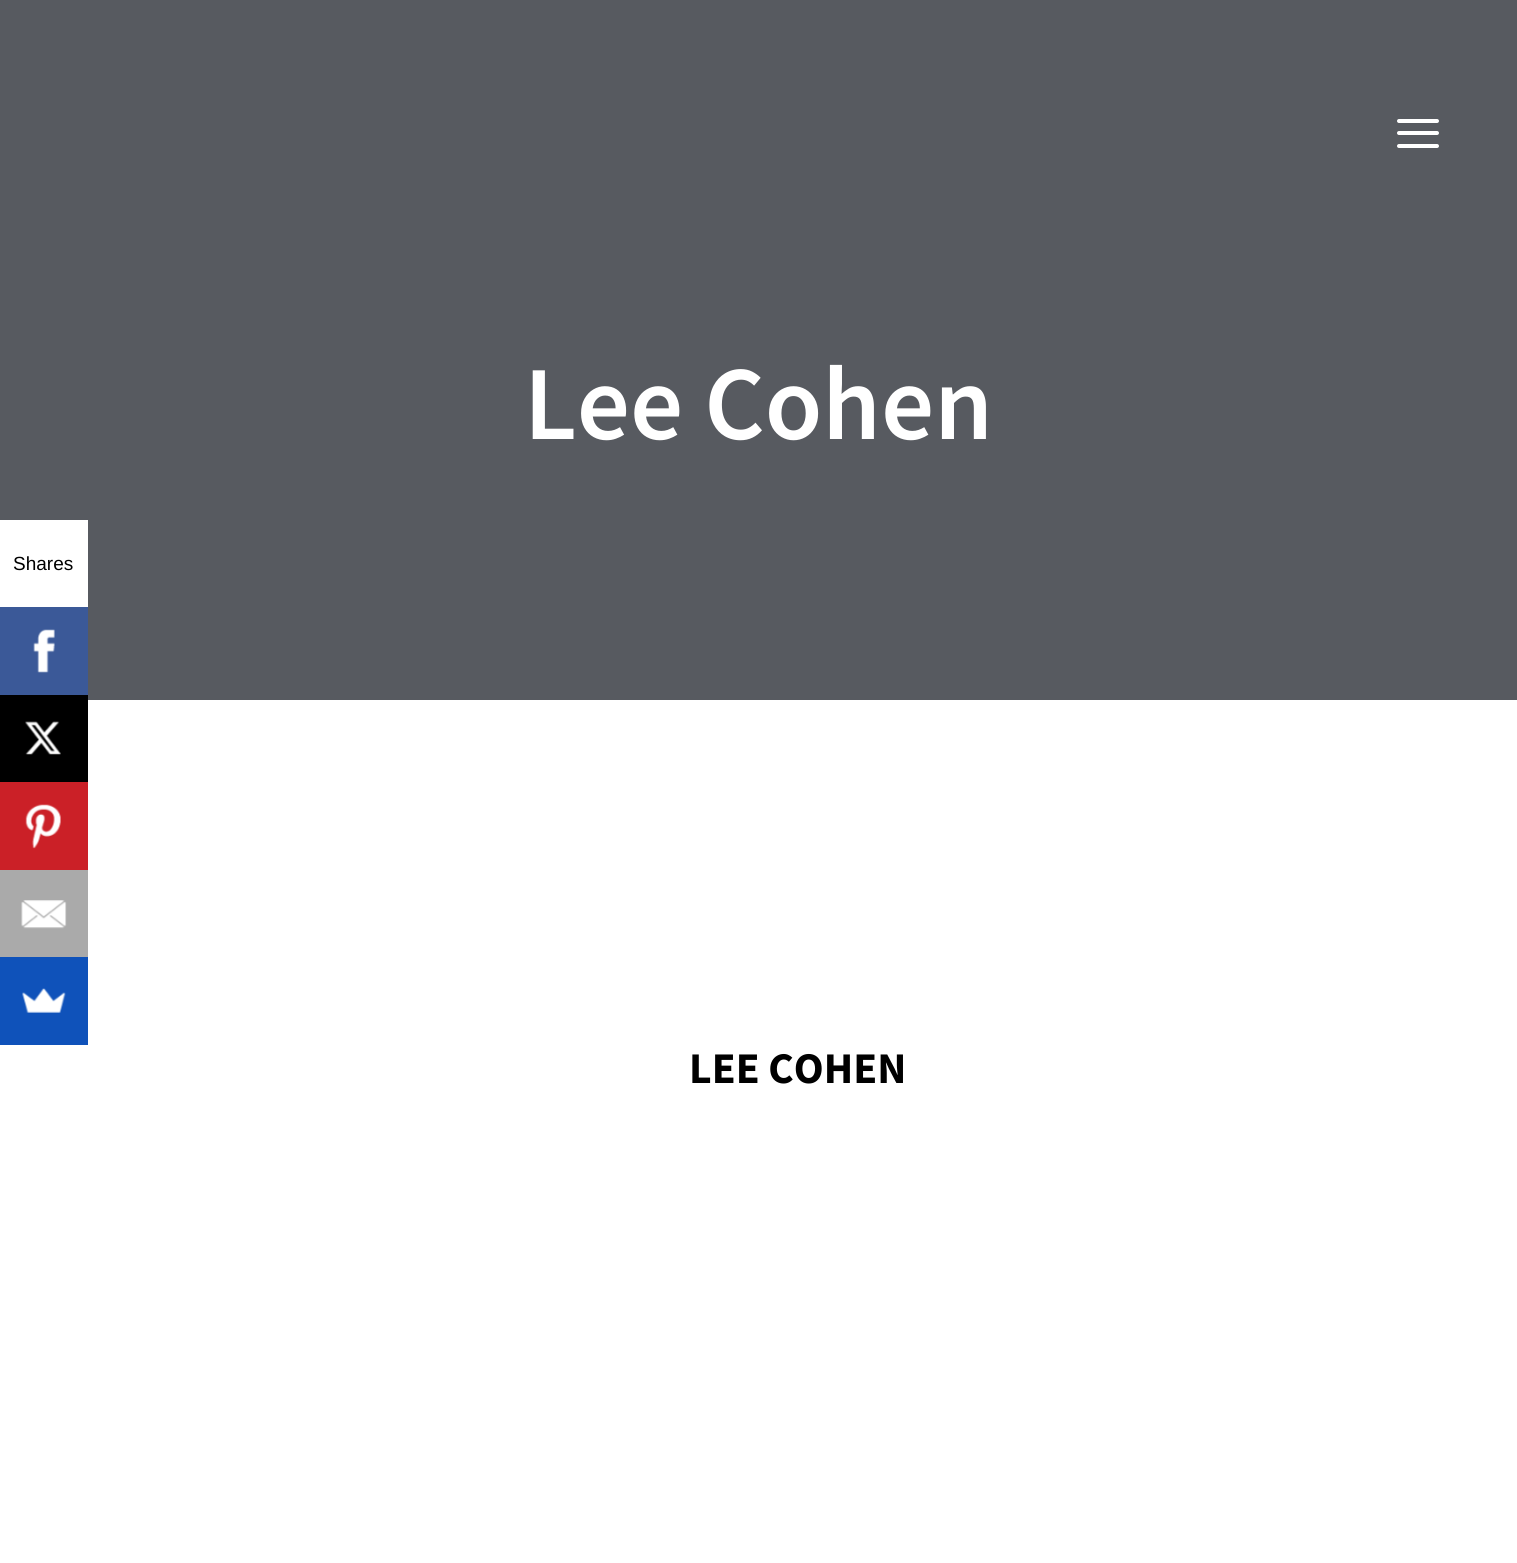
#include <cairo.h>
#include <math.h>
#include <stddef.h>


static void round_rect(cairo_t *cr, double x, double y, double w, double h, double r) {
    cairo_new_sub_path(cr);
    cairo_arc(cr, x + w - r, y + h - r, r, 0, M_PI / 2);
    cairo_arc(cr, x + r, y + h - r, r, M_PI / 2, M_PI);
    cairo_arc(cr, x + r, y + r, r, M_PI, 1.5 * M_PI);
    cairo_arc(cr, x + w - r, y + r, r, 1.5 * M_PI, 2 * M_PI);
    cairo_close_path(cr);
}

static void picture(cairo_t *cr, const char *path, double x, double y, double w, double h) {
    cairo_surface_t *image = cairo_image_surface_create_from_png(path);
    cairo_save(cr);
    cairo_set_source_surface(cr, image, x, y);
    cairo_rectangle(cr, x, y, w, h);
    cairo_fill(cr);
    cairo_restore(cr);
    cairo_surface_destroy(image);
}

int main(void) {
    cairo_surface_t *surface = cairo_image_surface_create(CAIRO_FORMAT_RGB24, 1517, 1563);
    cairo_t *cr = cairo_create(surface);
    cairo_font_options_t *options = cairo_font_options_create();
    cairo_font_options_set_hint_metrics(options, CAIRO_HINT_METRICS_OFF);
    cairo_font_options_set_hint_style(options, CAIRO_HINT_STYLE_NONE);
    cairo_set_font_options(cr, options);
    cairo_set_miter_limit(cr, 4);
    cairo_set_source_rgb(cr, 1, 1, 1);
    cairo_paint(cr);
    cairo_set_source_rgb(cr, 0.341, 0.353, 0.376);
    cairo_rectangle(cr, 0, 0, 1517, 700);
    cairo_fill(cr);
    cairo_set_source_rgb(cr, 1, 1, 1);
    cairo_rectangle(cr, 0, 520, 88, 87);
    cairo_fill(cr);
    cairo_select_font_face(cr, "Liberation Sans", CAIRO_FONT_SLANT_NORMAL, CAIRO_FONT_WEIGHT_NORMAL);
    cairo_set_font_size(cr, 19);
    cairo_set_source_rgb(cr, 0, 0, 0);
    cairo_move_to(cr, 13, 570);
    cairo_show_text(cr, "Shares");
    cairo_set_source_rgb(cr, 0.231, 0.349, 0.596);
    cairo_rectangle(cr, 0, 607, 88, 88);
    cairo_fill(cr);
    picture(cr, "img1.png", 33, 629, 22, 44);
    cairo_set_source_rgb(cr, 0, 0, 0);
    cairo_rectangle(cr, 0, 695, 88, 87);
    cairo_fill(cr);
    picture(cr, "img2.png", 25, 721, 36, 34);
    cairo_set_source_rgb(cr, 0.796, 0.125, 0.153);
    cairo_rectangle(cr, 0, 782, 88, 88);
    cairo_fill(cr);
    picture(cr, "img3.png", 25, 804, 36, 45);
    cairo_set_source_rgb(cr, 0.667, 0.667, 0.667);
    cairo_rectangle(cr, 0, 870, 88, 87);
    cairo_fill(cr);
    picture(cr, "img4.png", 21, 900, 46, 29);
    cairo_set_source_rgb(cr, 0.059, 0.322, 0.729);
    cairo_rectangle(cr, 0, 957, 88, 88);
    cairo_fill(cr);
    picture(cr, "img5.png", 22, 988, 44, 25);
    cairo_set_source_rgb(cr, 1, 1, 1);
    round_rect(cr, 1397, 119, 42, 4, 2);
    cairo_fill(cr);
    round_rect(cr, 1397, 131, 42, 4, 2);
    cairo_fill(cr);
    round_rect(cr, 1397, 144, 42, 4, 2);
    cairo_fill(cr);
    cairo_select_font_face(cr, "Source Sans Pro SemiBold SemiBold", CAIRO_FONT_SLANT_NORMAL, CAIRO_FONT_WEIGHT_NORMAL);
    cairo_set_font_size(cr, 105);
    cairo_move_to(cr, 524, 439);
    cairo_show_text(cr, "Lee Cohen");
    cairo_select_font_face(cr, "Source Sans Pro", CAIRO_FONT_SLANT_NORMAL, CAIRO_FONT_WEIGHT_BOLD);
    cairo_set_font_size(cr, 43.75);
    cairo_set_source_rgb(cr, 0, 0, 0);
    cairo_move_to(cr, 689, 1083);
    cairo_show_text(cr, "LEE COHEN");
    cairo_surface_write_to_png(surface, "page.png");
    cairo_font_options_destroy(options);
    cairo_destroy(cr);
    cairo_surface_destroy(surface);
    return 0;
}
